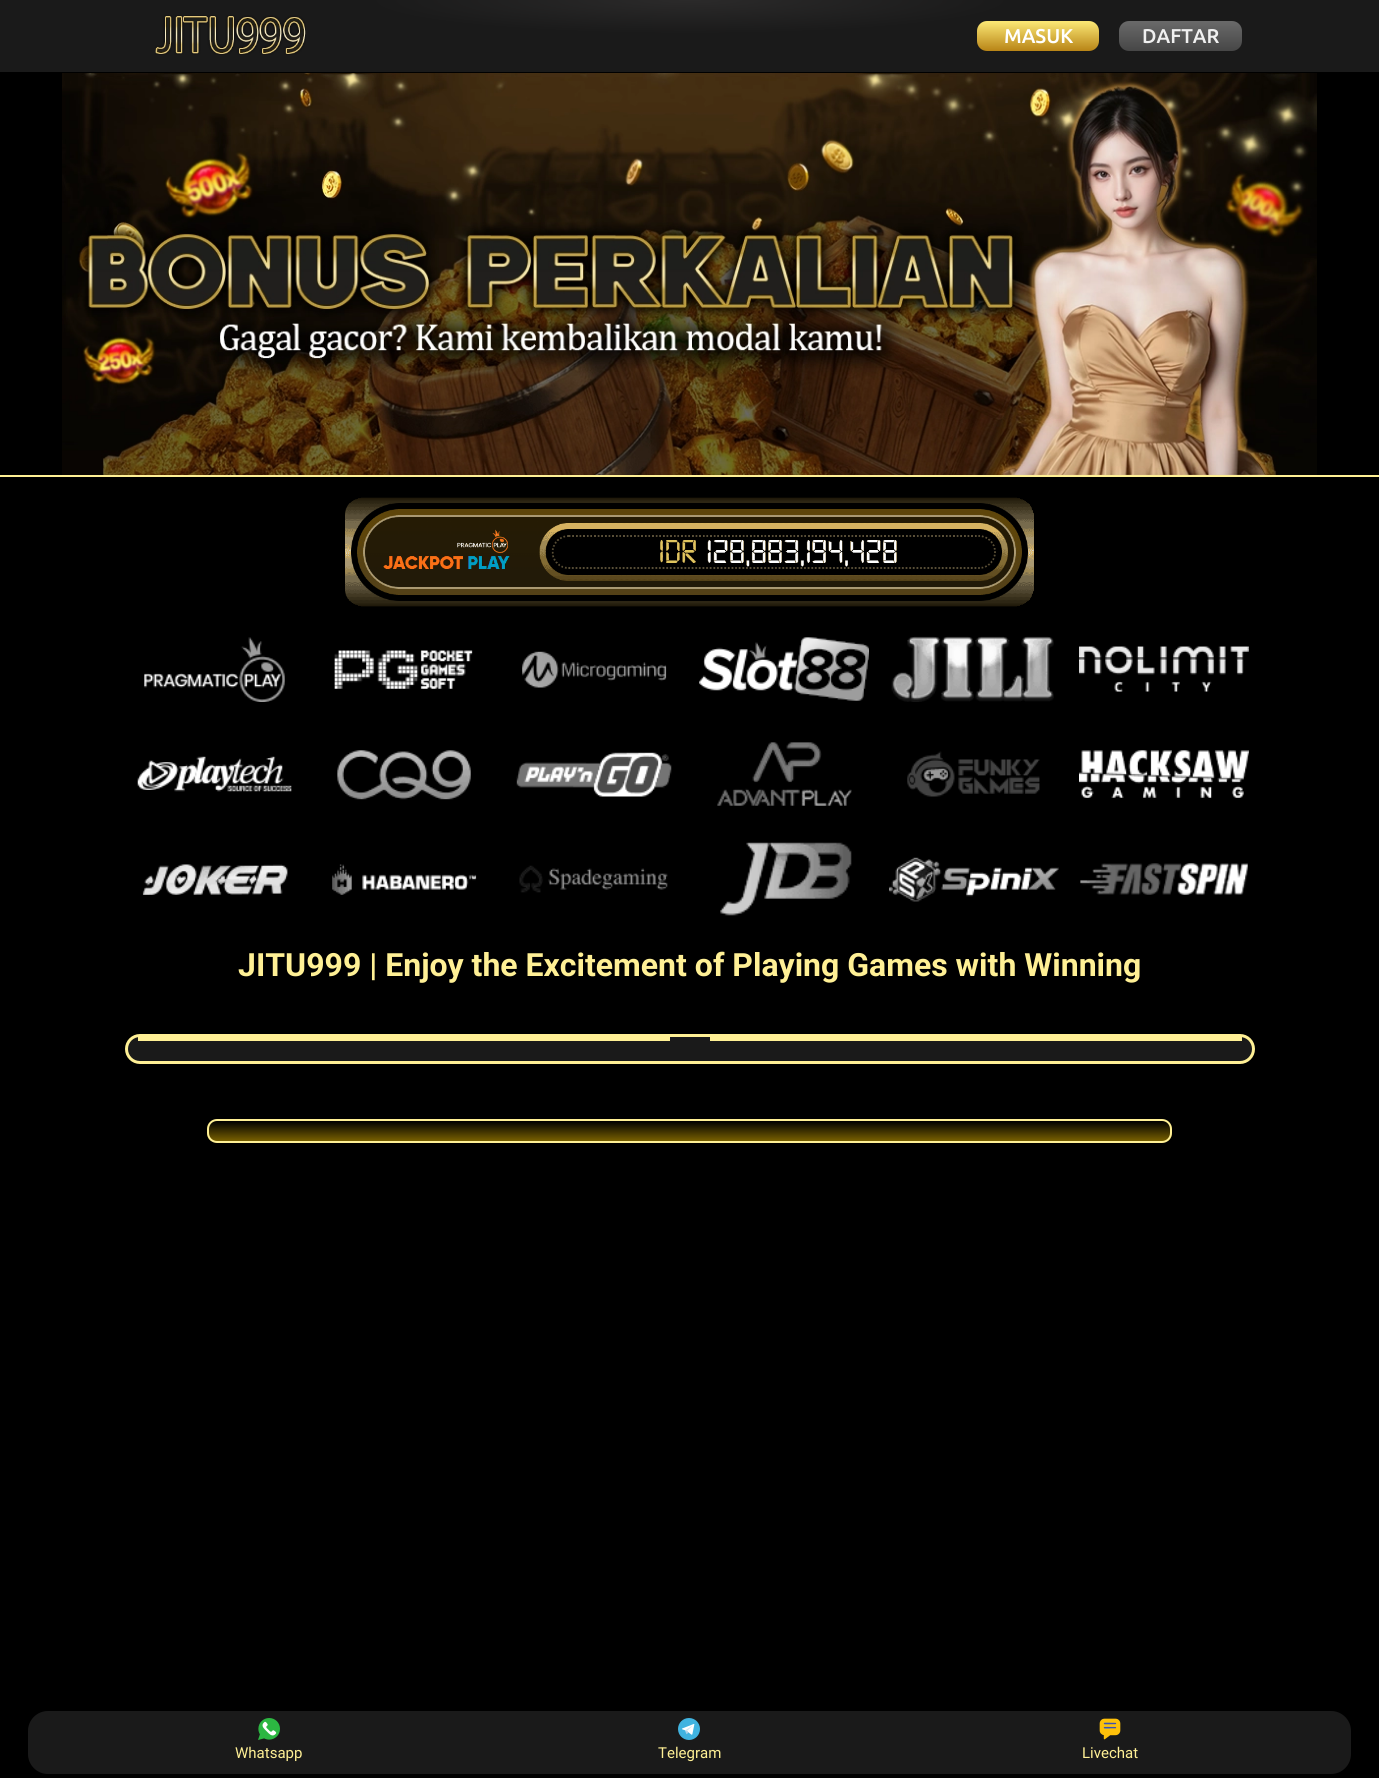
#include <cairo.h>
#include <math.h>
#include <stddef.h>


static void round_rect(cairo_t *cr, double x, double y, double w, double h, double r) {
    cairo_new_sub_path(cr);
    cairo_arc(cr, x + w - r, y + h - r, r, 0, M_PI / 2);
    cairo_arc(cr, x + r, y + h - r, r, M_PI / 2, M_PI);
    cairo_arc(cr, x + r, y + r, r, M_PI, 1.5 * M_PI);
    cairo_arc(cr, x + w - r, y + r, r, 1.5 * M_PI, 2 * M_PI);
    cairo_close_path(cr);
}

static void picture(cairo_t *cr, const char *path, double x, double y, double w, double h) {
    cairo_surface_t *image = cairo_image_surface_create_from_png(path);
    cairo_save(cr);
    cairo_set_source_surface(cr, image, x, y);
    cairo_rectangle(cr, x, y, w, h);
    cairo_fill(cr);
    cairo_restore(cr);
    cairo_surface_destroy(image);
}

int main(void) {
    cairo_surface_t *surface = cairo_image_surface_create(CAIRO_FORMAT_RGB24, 1379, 1778);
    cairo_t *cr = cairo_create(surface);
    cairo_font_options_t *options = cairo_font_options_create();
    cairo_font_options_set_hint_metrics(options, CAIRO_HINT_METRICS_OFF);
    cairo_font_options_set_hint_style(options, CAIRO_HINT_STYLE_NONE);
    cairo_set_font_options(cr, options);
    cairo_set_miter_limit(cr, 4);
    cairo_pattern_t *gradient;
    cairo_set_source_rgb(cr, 0, 0, 0);
    cairo_paint(cr);
    gradient = cairo_pattern_create_radial(0, 0, 0, 0, 0, 1);
    cairo_pattern_set_matrix(gradient, &(cairo_matrix_t){1.0 / 975, 0, 0, 1.0 / 102, -1.0 * 690 / 975, -1.0 * 0 / 102});
    cairo_pattern_add_color_stop_rgba(gradient, 0, 0.169, 0.165, 0.165, 1);
    cairo_pattern_add_color_stop_rgba(gradient, 0.33, 0.102, 0.102, 0.102, 1);
    cairo_set_source(cr, gradient);
    cairo_pattern_destroy(gradient);
    cairo_rectangle(cr, 0, 0, 1379, 72);
    cairo_fill(cr);
    picture(cr, "img1.png", 155, 15, 151, 40);
    gradient = cairo_pattern_create_linear(1038, 21, 1038, 51);
    cairo_pattern_add_color_stop_rgba(gradient, 0, 0.988, 0.914, 0.463, 1);
    cairo_pattern_add_color_stop_rgba(gradient, 1, 0.722, 0.518, 0.086, 1);
    cairo_set_source(cr, gradient);
    cairo_pattern_destroy(gradient);
    round_rect(cr, 977, 21, 122, 30, 10);
    cairo_fill(cr);
    cairo_select_font_face(cr, "Ubuntu Medium", CAIRO_FONT_SLANT_NORMAL, CAIRO_FONT_WEIGHT_NORMAL);
    cairo_set_font_size(cr, 20);
    cairo_set_source_rgb(cr, 1, 1, 1);
    cairo_move_to(cr, 1004, 43);
    cairo_show_text(cr, "MASUK");
    gradient = cairo_pattern_create_linear(1181, 21, 1181, 51);
    cairo_pattern_add_color_stop_rgba(gradient, 0, 0.416, 0.416, 0.416, 1);
    cairo_pattern_add_color_stop_rgba(gradient, 1, 0.275, 0.275, 0.275, 1);
    cairo_set_source(cr, gradient);
    cairo_pattern_destroy(gradient);
    round_rect(cr, 1119, 21, 123, 30, 10);
    cairo_fill(cr);
    cairo_set_source_rgb(cr, 0.941, 0.941, 0.941);
    cairo_move_to(cr, 1142, 43);
    cairo_show_text(cr, "DAFTAR");
    cairo_set_source_rgb(cr, 1, 0.941, 0.584);
    cairo_rectangle(cr, 0, 475, 1379, 2);
    cairo_fill(cr);
    picture(cr, "img2.png", 62, 73, 1255, 402);
    picture(cr, "img3.png", 345, 497, 689, 110);
    picture(cr, "img4.png", 144, 637, 141, 65);
    picture(cr, "img5.png", 137, 756, 155, 36);
    picture(cr, "img6.png", 142, 864, 146, 31);
    picture(cr, "img7.png", 334, 650, 139, 39);
    picture(cr, "img8.png", 337, 750, 134, 50);
    picture(cr, "img9.png", 332, 864, 145, 31);
    picture(cr, "img10.png", 522, 651, 145, 37);
    picture(cr, "img11.png", 516, 752, 156, 45);
    picture(cr, "img12.png", 519, 865, 149, 28);
    picture(cr, "img13.png", 699, 637, 170, 64);
    picture(cr, "img14.png", 717, 742, 135, 64);
    picture(cr, "img15.png", 720, 842, 132, 74);
    picture(cr, "img16.png", 891, 636, 163, 66);
    picture(cr, "img17.png", 907, 751, 133, 46);
    picture(cr, "img18.png", 889, 857, 170, 45);
    picture(cr, "img19.png", 1079, 646, 170, 46);
    picture(cr, "img20.png", 1079, 750, 170, 48);
    picture(cr, "img21.png", 1080, 863, 168, 32);
    cairo_select_font_face(cr, "Roboto", CAIRO_FONT_SLANT_NORMAL, CAIRO_FONT_WEIGHT_BOLD);
    cairo_set_font_size(cr, 32);
    cairo_move_to(cr, 238, 976);
    cairo_show_text(cr, "JITU999 | Enjoy the Excitement of Playing Games with Winning");
    cairo_set_source_rgb(cr, 0.102, 0.102, 0.102);
    round_rect(cr, 126.5, 1035.5, 1127, 27, 13.5);
    cairo_fill_preserve(cr);
    cairo_set_source_rgb(cr, 1, 0.941, 0.584);
    cairo_set_line_width(cr, 3);
    cairo_stroke(cr);
    cairo_rectangle(cr, 138, 1037, 532, 4);
    cairo_fill(cr);
    cairo_rectangle(cr, 710, 1037, 532, 4);
    cairo_fill(cr);
    cairo_save(cr);
    round_rect(cr, 207, 1119, 965, 24, 10);
    cairo_clip(cr);
    gradient = cairo_pattern_create_linear(690, 1121, 690, 1141);
    cairo_pattern_add_color_stop_rgba(gradient, 0, 0, 0, 0, 1);
    cairo_pattern_add_color_stop_rgba(gradient, 1, 0.471, 0.376, 0, 1);
    cairo_set_source(cr, gradient);
    cairo_pattern_destroy(gradient);
    cairo_rectangle(cr, 207, 1121, 965, 20);
    cairo_fill(cr);
    cairo_restore(cr);
    round_rect(cr, 208, 1120, 963, 22, 9);
    cairo_set_line_width(cr, 2);
    cairo_stroke(cr);
    cairo_set_source_rgb(cr, 0.102, 0.102, 0.102);
    round_rect(cr, 28, 1711, 1323, 63, 20);
    cairo_fill(cr);
    picture(cr, "img22.png", 258, 1718, 22, 22);
    cairo_select_font_face(cr, "Roboto", CAIRO_FONT_SLANT_NORMAL, CAIRO_FONT_WEIGHT_NORMAL);
    cairo_set_font_size(cr, 15);
    cairo_set_source_rgb(cr, 1, 0.941, 0.584);
    cairo_move_to(cr, 235, 1758);
    cairo_show_text(cr, "Whatsapp");
    picture(cr, "img23.png", 678, 1718, 22, 22);
    cairo_move_to(cr, 658, 1758);
    cairo_show_text(cr, "Telegram");
    picture(cr, "img24.png", 1099, 1718, 22, 22);
    cairo_move_to(cr, 1082, 1758);
    cairo_show_text(cr, "Livechat");
    cairo_surface_write_to_png(surface, "page.png");
    cairo_font_options_destroy(options);
    cairo_destroy(cr);
    cairo_surface_destroy(surface);
    return 0;
}
